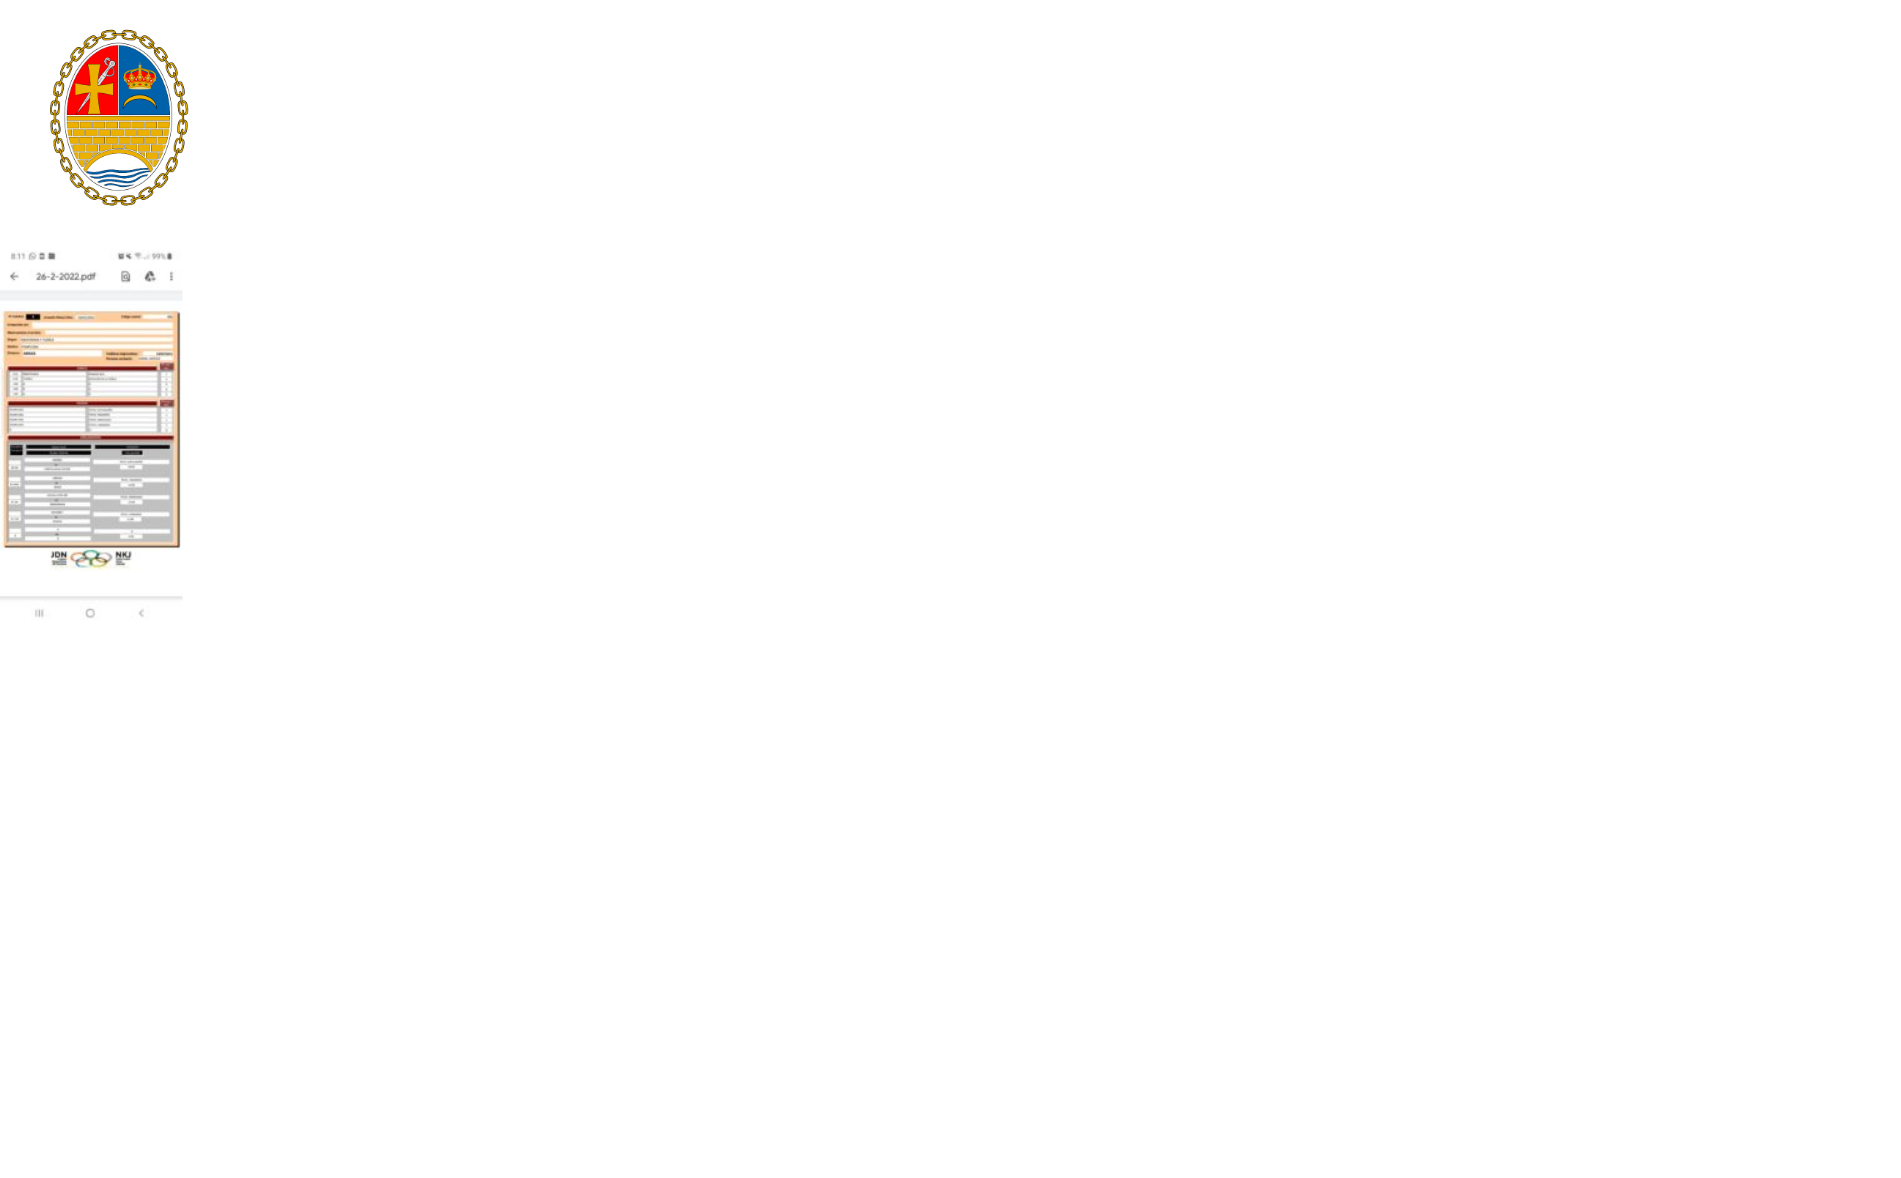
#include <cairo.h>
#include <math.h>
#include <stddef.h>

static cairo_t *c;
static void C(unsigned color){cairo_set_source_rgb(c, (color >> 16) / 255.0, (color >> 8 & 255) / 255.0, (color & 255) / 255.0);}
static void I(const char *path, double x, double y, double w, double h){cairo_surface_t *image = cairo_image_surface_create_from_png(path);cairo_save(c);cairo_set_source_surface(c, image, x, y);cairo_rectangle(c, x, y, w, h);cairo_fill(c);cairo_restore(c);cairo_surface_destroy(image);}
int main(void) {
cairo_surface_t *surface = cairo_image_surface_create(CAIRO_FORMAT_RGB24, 1901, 1178);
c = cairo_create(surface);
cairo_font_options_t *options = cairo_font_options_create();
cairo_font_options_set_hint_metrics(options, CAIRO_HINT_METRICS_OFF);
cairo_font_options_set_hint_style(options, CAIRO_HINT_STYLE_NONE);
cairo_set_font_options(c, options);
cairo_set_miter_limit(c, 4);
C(0xffffff);
cairo_paint(c);
I("1.png",50,29,139,177);
I("2.png",0,250,183,370);
cairo_surface_write_to_png(surface, "o.png");
cairo_font_options_destroy(options);
cairo_destroy(c);
cairo_surface_destroy(surface);
return 0;
}
